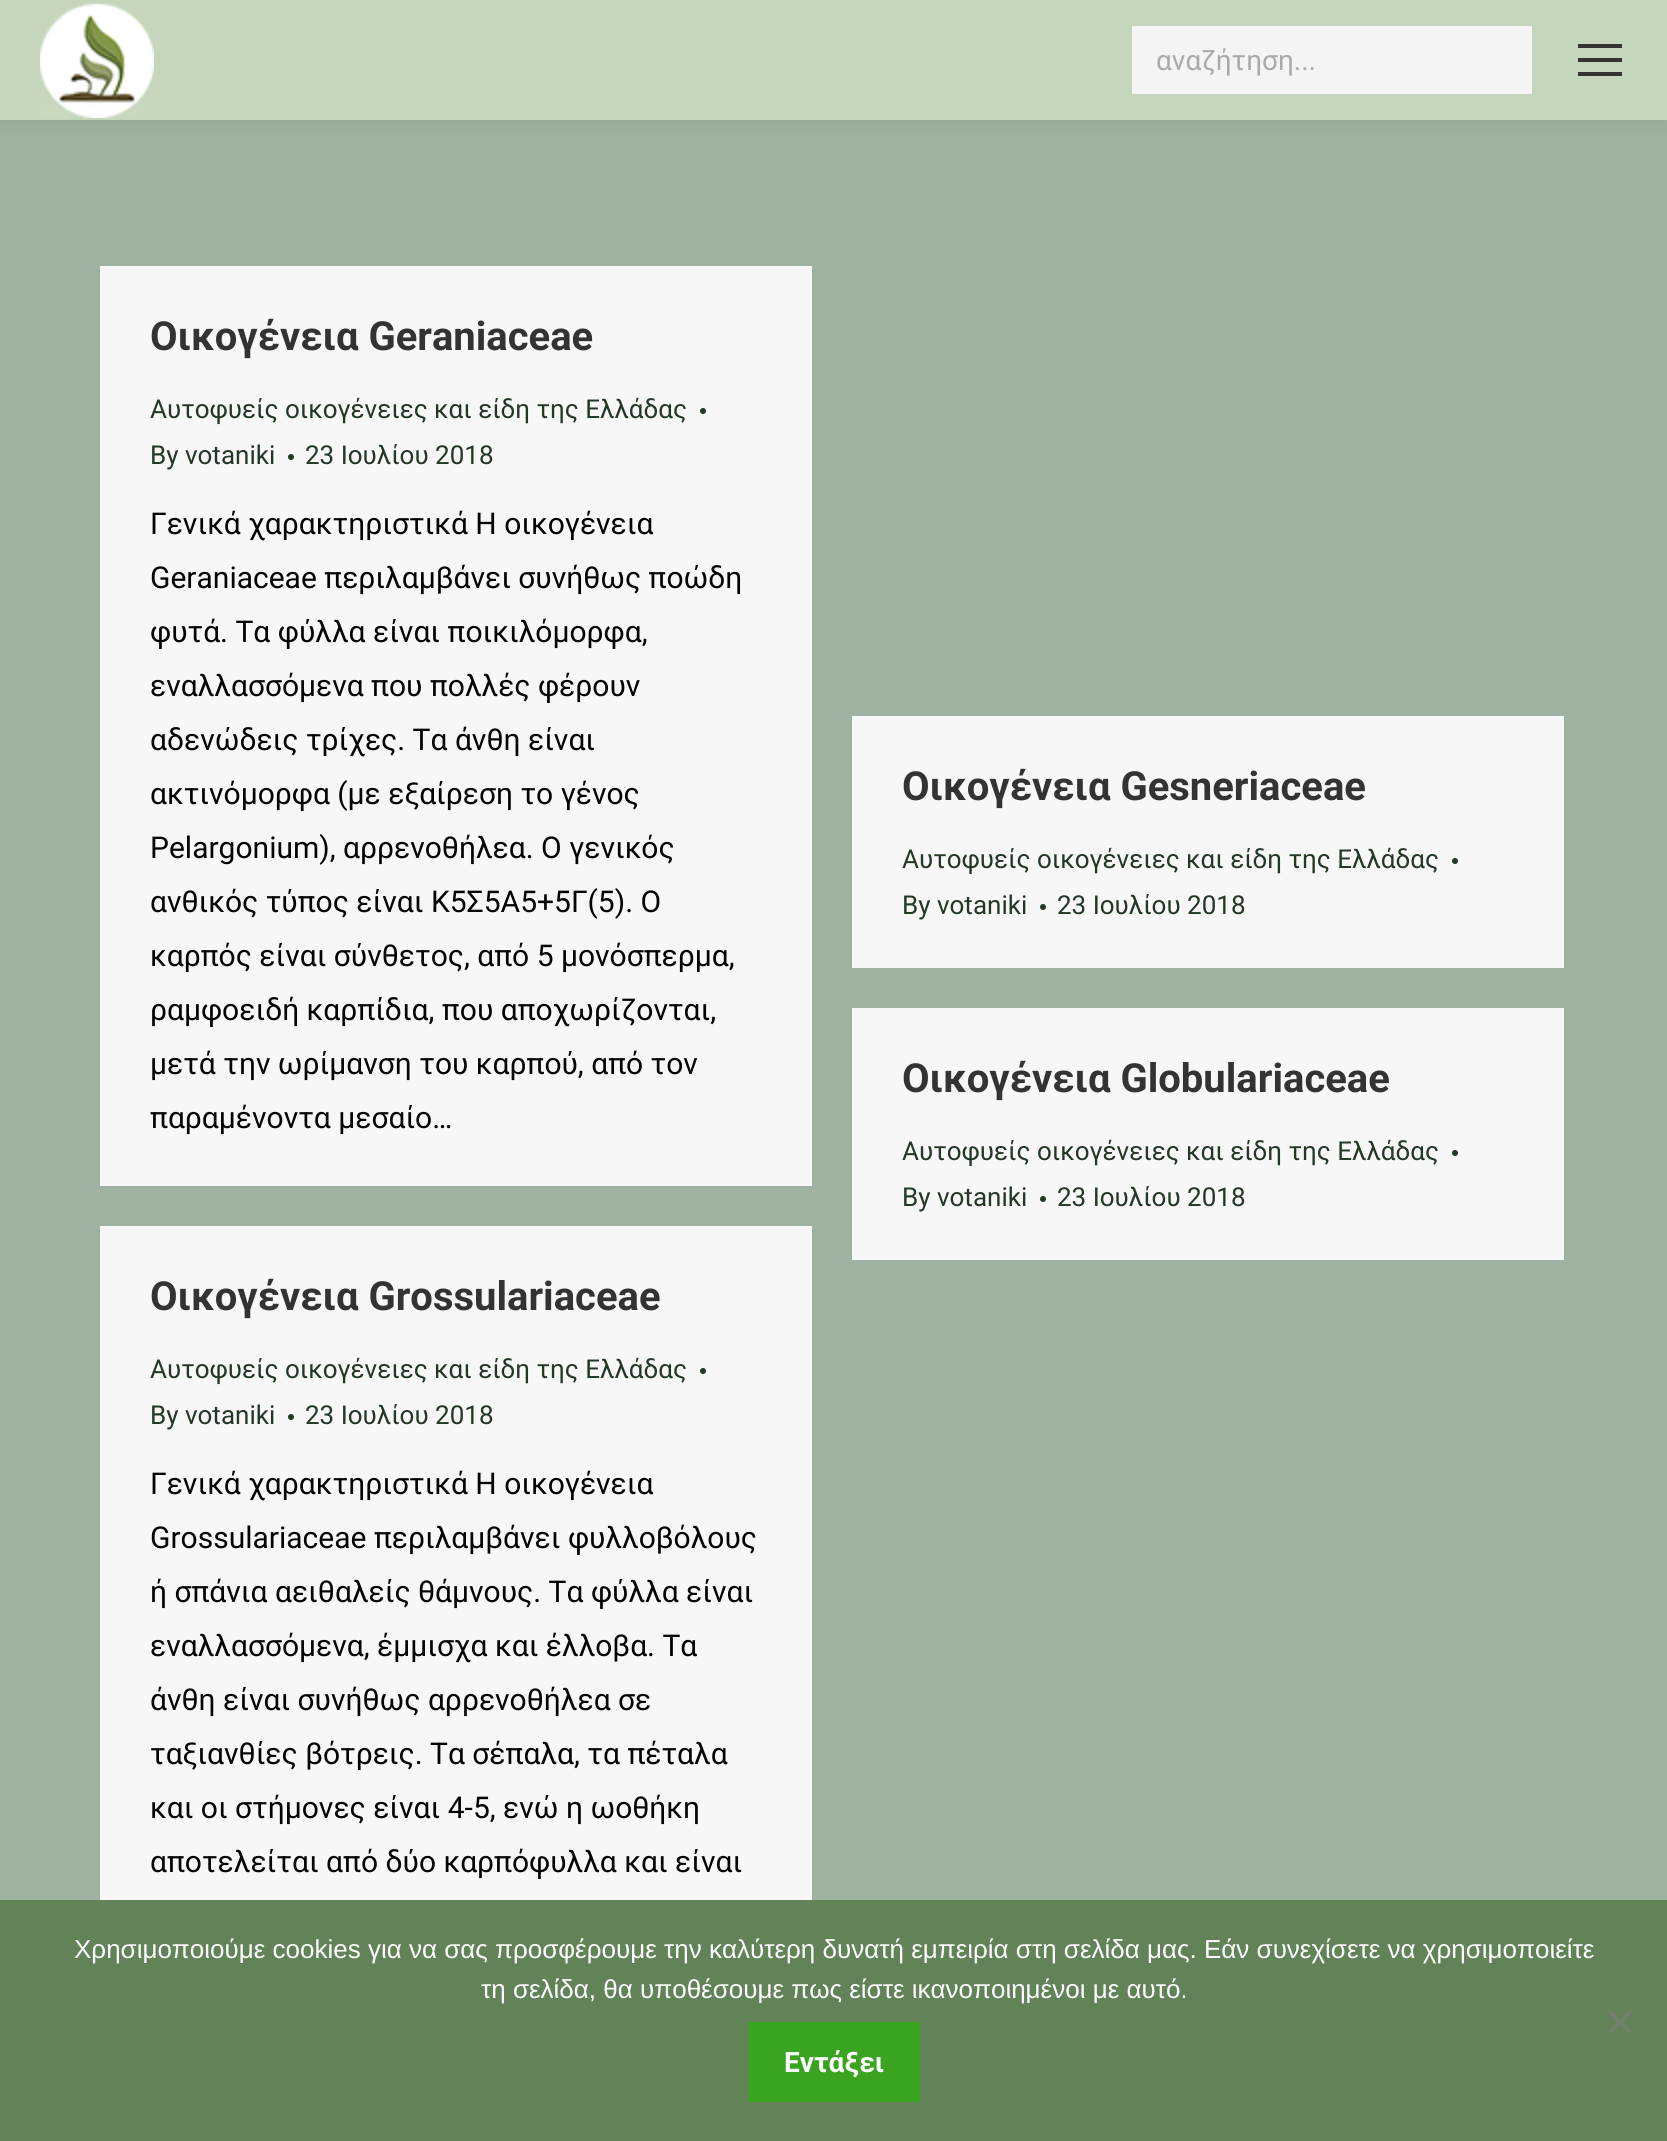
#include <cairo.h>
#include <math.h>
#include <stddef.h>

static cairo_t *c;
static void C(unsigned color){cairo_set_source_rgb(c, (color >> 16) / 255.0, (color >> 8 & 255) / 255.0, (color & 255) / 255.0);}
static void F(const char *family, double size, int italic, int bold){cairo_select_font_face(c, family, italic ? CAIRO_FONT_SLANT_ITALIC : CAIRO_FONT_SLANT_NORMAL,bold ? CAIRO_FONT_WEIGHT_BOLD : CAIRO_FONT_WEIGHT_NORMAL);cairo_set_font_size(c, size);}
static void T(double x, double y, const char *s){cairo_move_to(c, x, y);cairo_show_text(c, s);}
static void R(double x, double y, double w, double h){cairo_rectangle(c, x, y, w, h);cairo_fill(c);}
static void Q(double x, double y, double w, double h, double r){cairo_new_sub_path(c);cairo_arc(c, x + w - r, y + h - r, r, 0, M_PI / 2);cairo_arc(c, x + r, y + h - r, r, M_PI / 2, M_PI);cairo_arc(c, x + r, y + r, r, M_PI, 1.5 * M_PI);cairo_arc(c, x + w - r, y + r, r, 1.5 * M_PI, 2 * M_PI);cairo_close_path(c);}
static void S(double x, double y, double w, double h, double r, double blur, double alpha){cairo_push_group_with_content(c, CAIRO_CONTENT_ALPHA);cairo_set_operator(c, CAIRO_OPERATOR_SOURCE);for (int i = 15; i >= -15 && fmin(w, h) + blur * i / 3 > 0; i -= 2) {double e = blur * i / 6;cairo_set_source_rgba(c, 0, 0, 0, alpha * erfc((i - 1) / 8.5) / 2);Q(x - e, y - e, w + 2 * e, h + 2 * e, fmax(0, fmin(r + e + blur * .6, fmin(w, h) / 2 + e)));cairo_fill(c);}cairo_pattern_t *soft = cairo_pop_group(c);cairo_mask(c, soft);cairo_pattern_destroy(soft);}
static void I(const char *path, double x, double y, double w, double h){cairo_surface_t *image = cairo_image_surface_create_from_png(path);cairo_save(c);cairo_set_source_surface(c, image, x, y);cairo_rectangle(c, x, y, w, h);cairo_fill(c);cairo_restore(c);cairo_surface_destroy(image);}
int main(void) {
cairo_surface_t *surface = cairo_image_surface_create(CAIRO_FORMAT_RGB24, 1667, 2141);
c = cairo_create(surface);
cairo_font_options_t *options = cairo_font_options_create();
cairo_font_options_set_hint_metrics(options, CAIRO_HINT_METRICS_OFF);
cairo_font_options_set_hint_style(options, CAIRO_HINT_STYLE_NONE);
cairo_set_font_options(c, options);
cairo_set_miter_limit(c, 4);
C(0xa0b2a1);
cairo_paint(c);
C(0x000000);
S(-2,-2,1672,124,0,15,.07);
C(0xc6d6bc);
R(0,0,1667,120);
I("1.png",40,3,114,115);
C(0xf4f4f4);
R(1132,26,400,68);
F("Roboto",28,0,0);
C(0xaaaaaa);
T(1156,70,"αναζήτηση...");
C(0x333333);
R(1578,44,44,4);
R(1578,58,44,4);
R(1578,72,44,4);
C(0xf7f7f7);
R(100,266,712,920);
F("Roboto",40,0,1);
C(0x333333);
T(150,350,"Οικογένεια Geraniaceae");
F("Roboto",26,0,0);
C(0x233825);
T(150,418,"Αυτοφυείς οικογένειες και είδη της Ελλάδας");
cairo_new_path(c);
cairo_arc(c,703,411,3,0,2 * M_PI);
cairo_fill(c);
T(150,464,"By votaniki");
cairo_new_path(c);
cairo_arc(c,291,457,3,0,2 * M_PI);
cairo_fill(c);
T(305,464,"23 Ιουλίου 2018");
F("Roboto",30,0,0);
C(0x050404);
T(150,534,"Γενικά χαρακτηριστικά Η οικογένεια");
T(150,588,"Geraniaceae περιλαμβάνει συνήθως ποώδη");
T(150,642,"φυτά. Τα φύλλα είναι ποικιλόμορφα,");
T(150,696,"εναλλασσόμενα που πολλές φέρουν");
T(150,750,"αδενώδεις τρίχες. Τα άνθη είναι");
T(150,804,"ακτινόμορφα (με εξαίρεση το γένος");
T(150,858,"Pelargonium), αρρενοθήλεα. Ο γενικός");
T(150,912,"ανθικός τύπος είναι Κ5Σ5Α5+5Γ(5). Ο");
T(150,966,"καρπός είναι σύνθετος, από 5 μονόσπερμα,");
T(150,1020,"ραμφοειδή καρπίδια, που αποχωρίζονται,");
T(150,1074,"μετά την ωρίμανση του καρπού, από τον");
T(150,1128,"παραμένοντα μεσαίο…");
C(0xf7f7f7);
R(852,716,712,252);
F("Roboto",40,0,1);
C(0x333333);
T(902,800,"Οικογένεια Gesneriaceae");
F("Roboto",26,0,0);
C(0x233825);
T(902,868,"Αυτοφυείς οικογένειες και είδη της Ελλάδας");
cairo_new_path(c);
cairo_arc(c,1455,861,3,0,2 * M_PI);
cairo_fill(c);
T(902,914,"By votaniki");
cairo_new_path(c);
cairo_arc(c,1043,907,3,0,2 * M_PI);
cairo_fill(c);
T(1057,914,"23 Ιουλίου 2018");
C(0xf7f7f7);
R(852,1008,712,252);
F("Roboto",40,0,1);
C(0x333333);
T(902,1092,"Οικογένεια Globulariaceae");
F("Roboto",26,0,0);
C(0x233825);
T(902,1160,"Αυτοφυείς οικογένειες και είδη της Ελλάδας");
cairo_new_path(c);
cairo_arc(c,1455,1153,3,0,2 * M_PI);
cairo_fill(c);
T(902,1206,"By votaniki");
cairo_new_path(c);
cairo_arc(c,1043,1199,3,0,2 * M_PI);
cairo_fill(c);
T(1057,1206,"23 Ιουλίου 2018");
C(0xf7f7f7);
R(100,1226,712,674);
F("Roboto",40,0,1);
C(0x333333);
T(150,1310,"Οικογένεια Grossulariaceae");
F("Roboto",26,0,0);
C(0x233825);
T(150,1378,"Αυτοφυείς οικογένειες και είδη της Ελλάδας");
cairo_new_path(c);
cairo_arc(c,703,1371,3,0,2 * M_PI);
cairo_fill(c);
T(150,1424,"By votaniki");
cairo_new_path(c);
cairo_arc(c,291,1417,3,0,2 * M_PI);
cairo_fill(c);
T(305,1424,"23 Ιουλίου 2018");
F("Roboto",30,0,0);
C(0x050404);
T(150,1494,"Γενικά χαρακτηριστικά H οικογένεια");
T(150,1548,"Grossulariaceae περιλαμβάνει φυλλοβόλους");
T(150,1602,"ή σπάνια αειθαλείς θάμνους. Τα φύλλα είναι");
T(150,1656,"εναλλασσόμενα, έμμισχα και έλλοβα. Τα");
T(150,1710,"άνθη είναι συνήθως αρρενοθήλεα σε");
T(150,1764,"ταξιανθίες βότρεις. Τα σέπαλα, τα πέταλα");
T(150,1818,"και οι στήμονες είναι 4-5, ενώ η ωοθήκη");
T(150,1872,"αποτελείται από δύο καρπόφυλλα και είναι");
C(0x628258);
R(0,1900,1667,241);
F("Liberation Sans",26,0,0);
C(0xffffff);
T(74,1958,"Χρησιμοποιούμε cookies για να σας προσφέρουμε την καλύτερη δυνατή εμπειρία στη σελίδα μας. Εάν συνεχίσετε να χρησιμοποιείτε");
T(481,1998,"τη σελίδα, θα υποθέσουμε πως είστε ικανοποιημένοι με αυτό.");
C(0x71816c);
cairo_new_path(c);
cairo_move_to(c,1629,2010);
cairo_line_to(c,1632,2013);
cairo_line_to(c,1611,2034);
cairo_line_to(c,1608,2031);
cairo_close_path(c);
cairo_fill(c);
cairo_new_path(c);
cairo_move_to(c,1608,2013);
cairo_line_to(c,1611,2010);
cairo_line_to(c,1632,2031);
cairo_line_to(c,1629,2034);
cairo_close_path(c);
cairo_fill(c);
C(0x3aa320);
Q(748,2022,172,80,2);
cairo_fill(c);
F("Roboto",28,0,1);
C(0xffffff);
T(784,2072,"Εντάξει");
cairo_surface_write_to_png(surface, "o.png");
cairo_font_options_destroy(options);
cairo_destroy(c);
cairo_surface_destroy(surface);
return 0;
}
